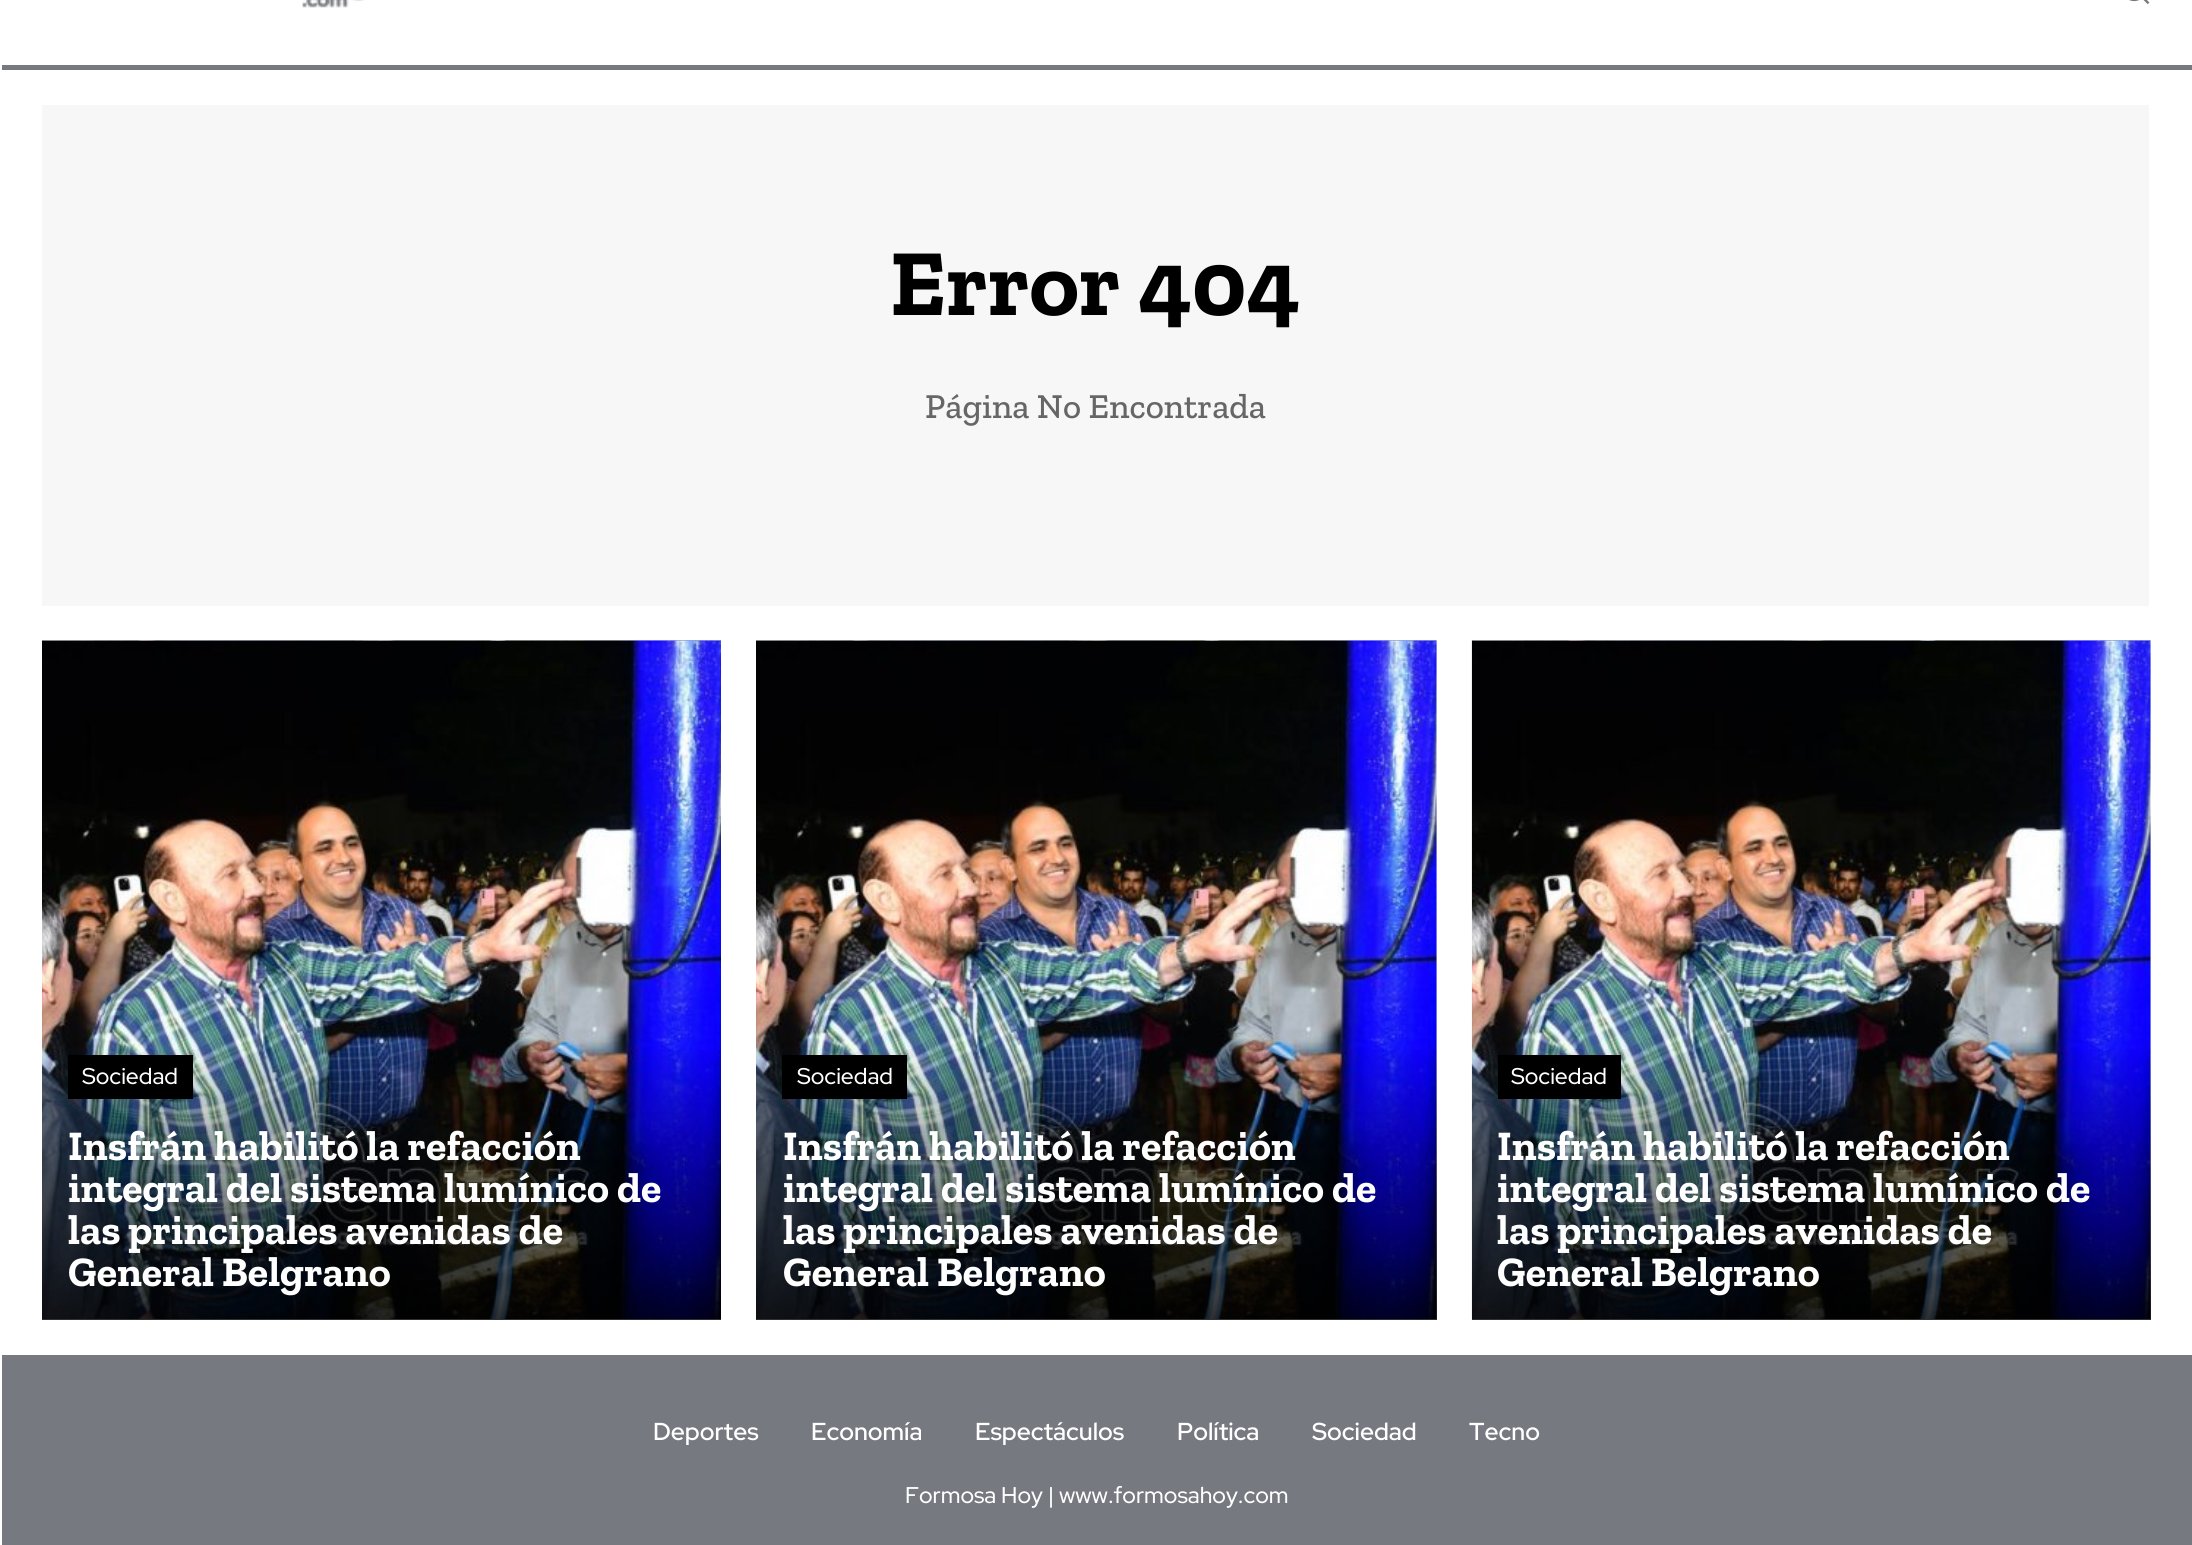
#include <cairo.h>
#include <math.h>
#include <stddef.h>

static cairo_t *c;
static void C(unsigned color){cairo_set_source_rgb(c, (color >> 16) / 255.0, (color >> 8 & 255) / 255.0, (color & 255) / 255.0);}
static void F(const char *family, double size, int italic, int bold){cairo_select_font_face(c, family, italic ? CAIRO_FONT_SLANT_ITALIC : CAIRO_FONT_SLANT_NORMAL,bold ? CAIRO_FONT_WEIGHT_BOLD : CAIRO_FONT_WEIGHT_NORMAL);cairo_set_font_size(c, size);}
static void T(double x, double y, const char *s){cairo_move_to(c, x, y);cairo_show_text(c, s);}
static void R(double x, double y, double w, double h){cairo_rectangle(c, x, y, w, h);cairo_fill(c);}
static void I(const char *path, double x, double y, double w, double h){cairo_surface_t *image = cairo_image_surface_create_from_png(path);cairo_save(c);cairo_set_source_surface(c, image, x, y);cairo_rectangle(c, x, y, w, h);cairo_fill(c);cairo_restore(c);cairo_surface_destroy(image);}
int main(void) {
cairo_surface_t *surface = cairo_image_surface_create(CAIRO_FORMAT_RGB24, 2192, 1545);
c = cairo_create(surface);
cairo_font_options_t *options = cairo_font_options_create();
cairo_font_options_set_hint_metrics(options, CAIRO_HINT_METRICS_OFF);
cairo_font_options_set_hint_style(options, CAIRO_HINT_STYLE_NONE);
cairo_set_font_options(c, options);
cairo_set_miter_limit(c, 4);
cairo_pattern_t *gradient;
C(0xffffff);
cairo_paint(c);
I("1.png",302,0,62,8);
I("2.png",2129,0,21,5);
C(0x777980);
R(2,65,2190,5);
C(0xf7f7f7);
R(42,105,2107,501);
F("Zilla Slab",94.5,0,1);
C(0x000000);
T(890,315,"Error 404");
F("Zilla Slab Medium",35,0,0);
C(0x666666);
T(925,418,"Página No Encontrada");
I("3.png",42,640,679,680);
gradient = cairo_pattern_create_linear(382,1320,382,641);
cairo_pattern_add_color_stop_rgba(gradient,0,0,0,0,.8);
cairo_pattern_add_color_stop_rgba(gradient,.41,0,0,0,0);
cairo_pattern_add_color_stop_rgba(gradient,1,0,0,0,0);
cairo_set_source(c,gradient);
cairo_pattern_destroy(gradient);
R(42,1049,679,271);
C(0x000000);
R(68,1055,125,44);
F("Red Hat Display Medium",22.75,0,0);
C(0xffffff);
T(82,1084,"Sociedad");
F("Zilla Slab",42,0,1);
T(68,1160,"Insfrán habilitó la refacción");
T(68,1202,"integral del sistema lumínico de");
T(68,1244,"las principales avenidas de");
T(68,1286,"General Belgrano");
I("4.png",756,640,681,680);
gradient = cairo_pattern_create_linear(1096,1320,1096,641);
cairo_pattern_add_color_stop_rgba(gradient,0,0,0,0,.8);
cairo_pattern_add_color_stop_rgba(gradient,.41,0,0,0,0);
cairo_pattern_add_color_stop_rgba(gradient,1,0,0,0,0);
cairo_set_source(c,gradient);
cairo_pattern_destroy(gradient);
R(756,1049,681,271);
C(0x000000);
R(782,1055,125,44);
F("Red Hat Display Medium",22.75,0,0);
C(0xffffff);
T(797,1084,"Sociedad");
F("Zilla Slab",42,0,1);
T(783,1160,"Insfrán habilitó la refacción");
T(783,1202,"integral del sistema lumínico de");
T(783,1244,"las principales avenidas de");
T(783,1286,"General Belgrano");
I("5.png",1471,640,680,680);
gradient = cairo_pattern_create_linear(1811,1320,1811,641);
cairo_pattern_add_color_stop_rgba(gradient,0,0,0,0,.8);
cairo_pattern_add_color_stop_rgba(gradient,.41,0,0,0,0);
cairo_pattern_add_color_stop_rgba(gradient,1,0,0,0,0);
cairo_set_source(c,gradient);
cairo_pattern_destroy(gradient);
R(1472,1049,679,271);
C(0x000000);
R(1498,1055,123,44);
F("Red Hat Display Medium",22.75,0,0);
C(0xffffff);
T(1511,1084,"Sociedad");
F("Zilla Slab",42,0,1);
T(1497,1160,"Insfrán habilitó la refacción");
T(1497,1202,"integral del sistema lumínico de");
T(1497,1244,"las principales avenidas de");
T(1497,1286,"General Belgrano");
C(0x777980);
R(2,1355,2190,190);
F("Red Hat Display SemiBold",24.5,0,0);
C(0xffffff);
T(653,1440,"Deportes");
T(811,1440,"Economía");
T(975,1440,"Espectáculos");
T(1177,1440,"Política");
T(1312,1440,"Sociedad");
T(1469,1440,"Tecno");
F("Red Hat Display Medium",22.75,0,0);
T(905,1503,"Formosa Hoy | www.formosahoy.com");
cairo_surface_write_to_png(surface, "o.png");
cairo_font_options_destroy(options);
cairo_destroy(c);
cairo_surface_destroy(surface);
return 0;
}
